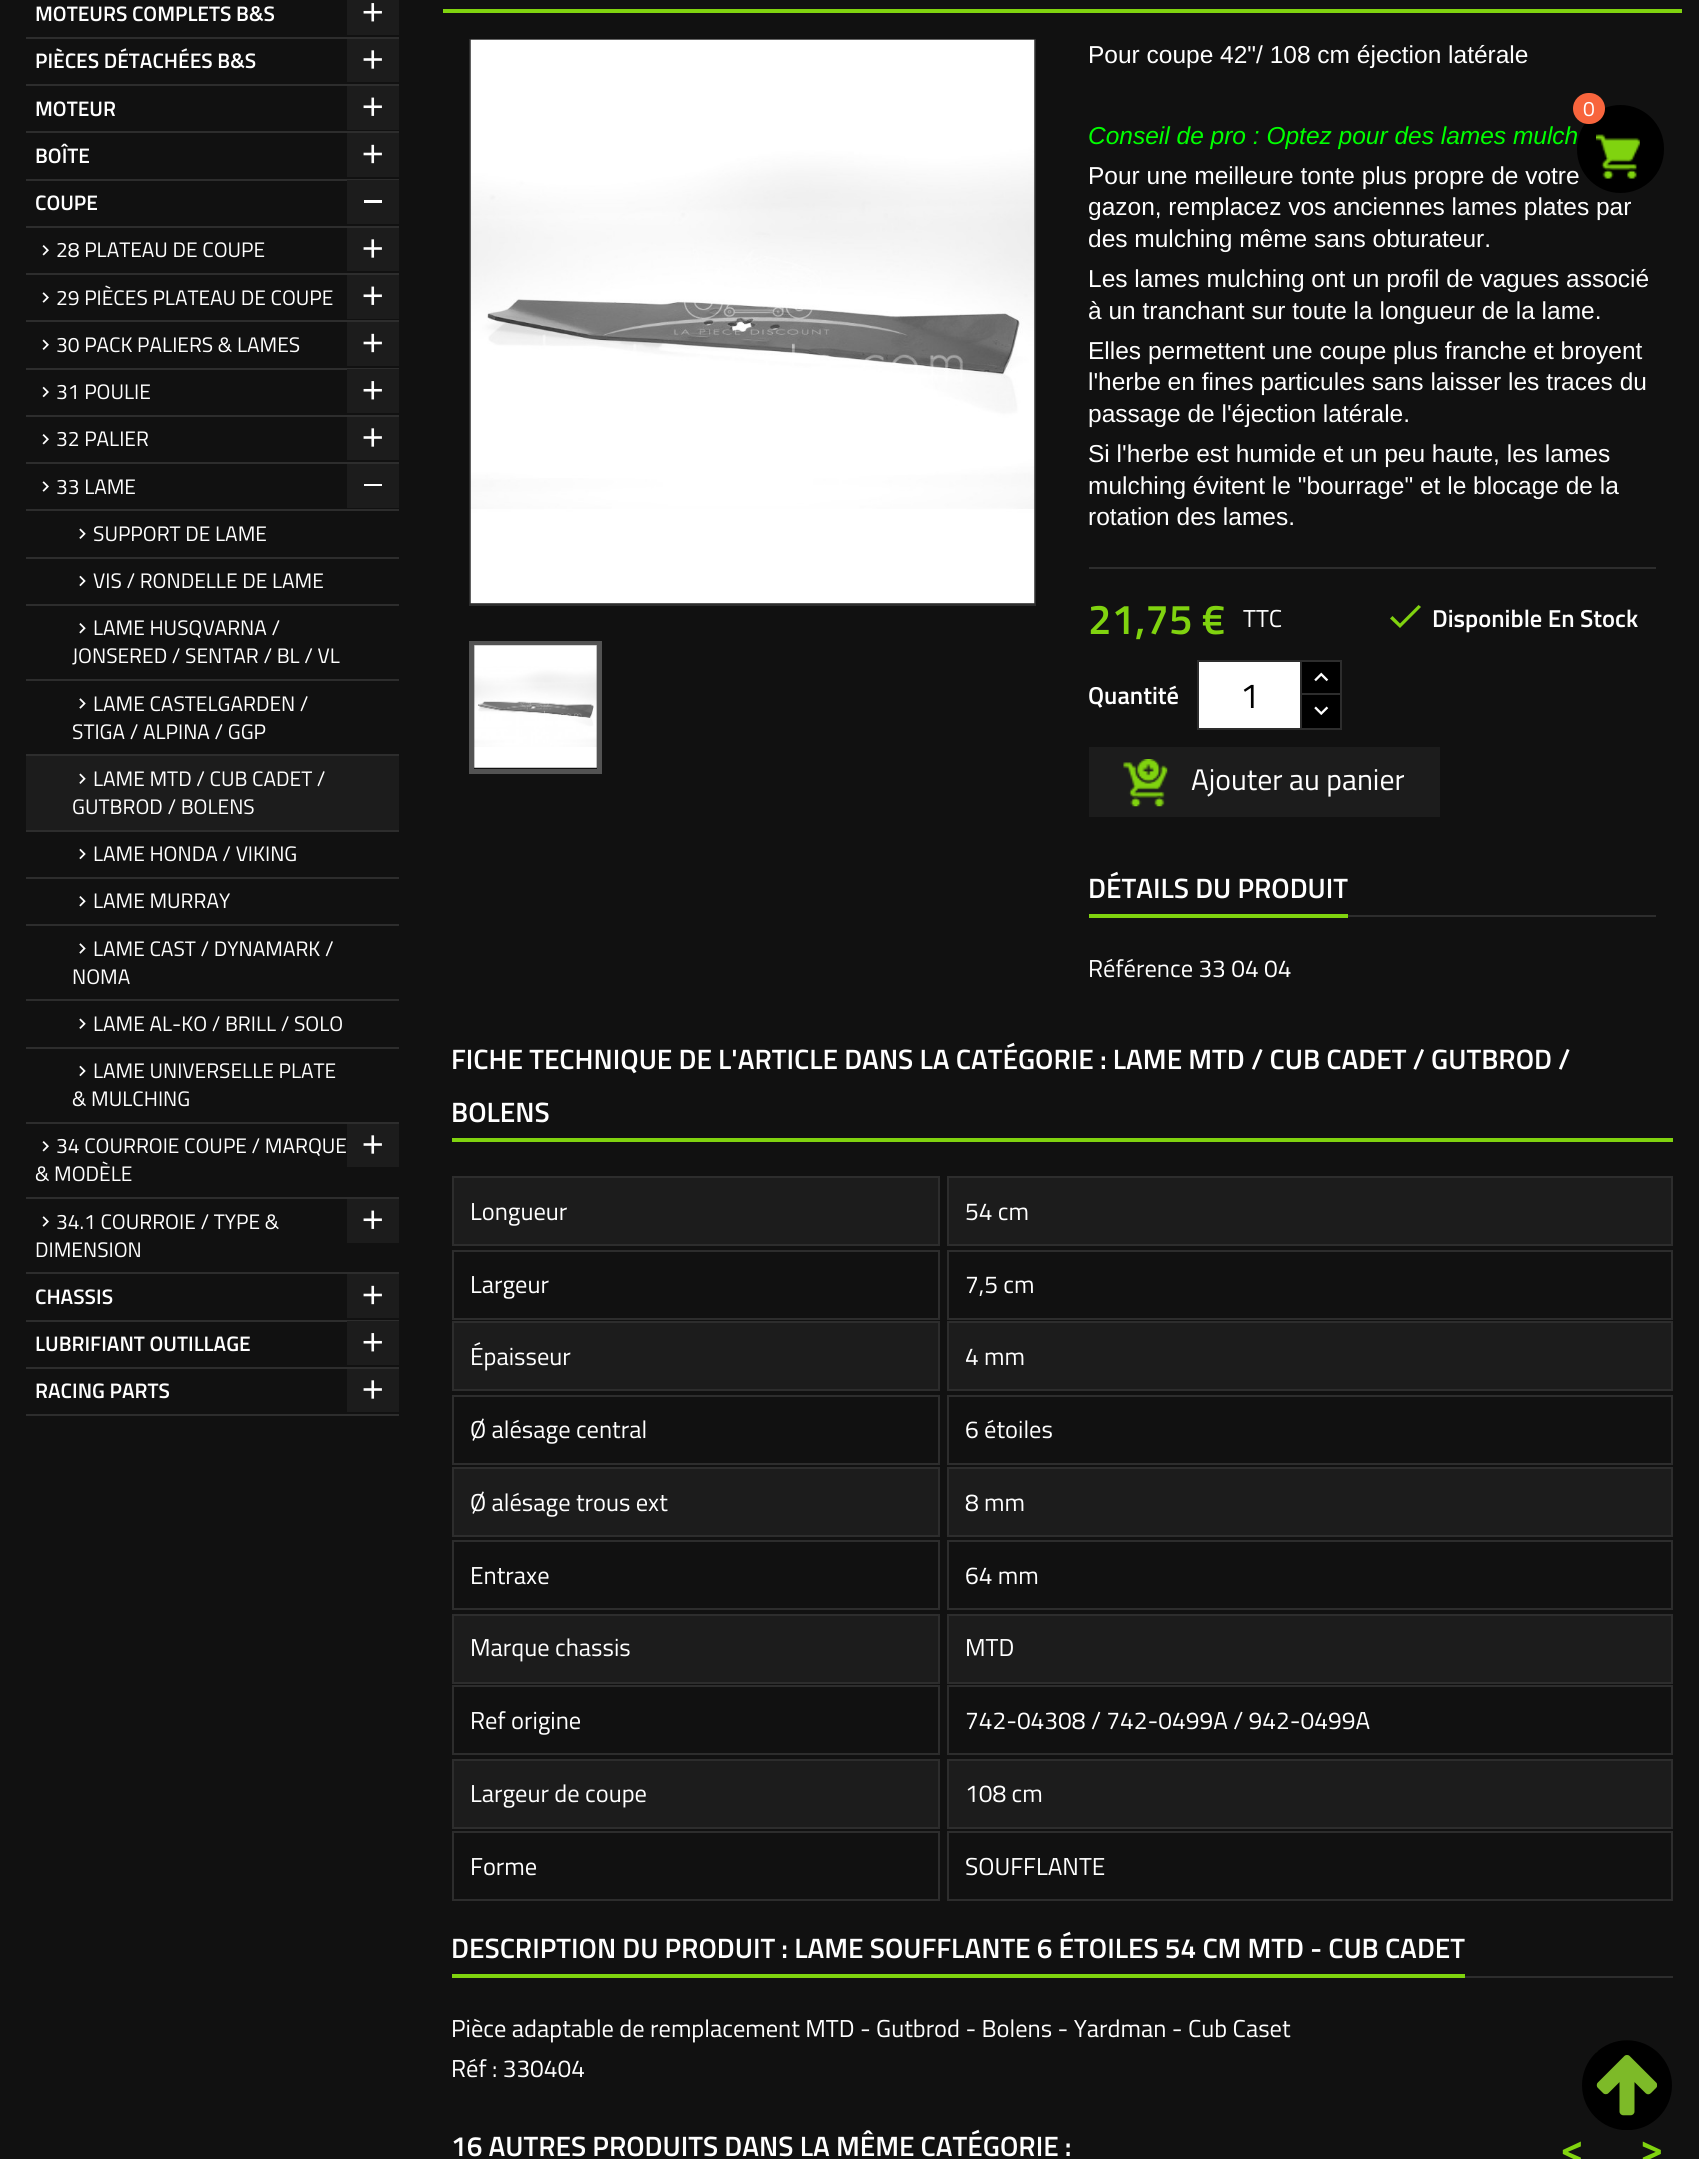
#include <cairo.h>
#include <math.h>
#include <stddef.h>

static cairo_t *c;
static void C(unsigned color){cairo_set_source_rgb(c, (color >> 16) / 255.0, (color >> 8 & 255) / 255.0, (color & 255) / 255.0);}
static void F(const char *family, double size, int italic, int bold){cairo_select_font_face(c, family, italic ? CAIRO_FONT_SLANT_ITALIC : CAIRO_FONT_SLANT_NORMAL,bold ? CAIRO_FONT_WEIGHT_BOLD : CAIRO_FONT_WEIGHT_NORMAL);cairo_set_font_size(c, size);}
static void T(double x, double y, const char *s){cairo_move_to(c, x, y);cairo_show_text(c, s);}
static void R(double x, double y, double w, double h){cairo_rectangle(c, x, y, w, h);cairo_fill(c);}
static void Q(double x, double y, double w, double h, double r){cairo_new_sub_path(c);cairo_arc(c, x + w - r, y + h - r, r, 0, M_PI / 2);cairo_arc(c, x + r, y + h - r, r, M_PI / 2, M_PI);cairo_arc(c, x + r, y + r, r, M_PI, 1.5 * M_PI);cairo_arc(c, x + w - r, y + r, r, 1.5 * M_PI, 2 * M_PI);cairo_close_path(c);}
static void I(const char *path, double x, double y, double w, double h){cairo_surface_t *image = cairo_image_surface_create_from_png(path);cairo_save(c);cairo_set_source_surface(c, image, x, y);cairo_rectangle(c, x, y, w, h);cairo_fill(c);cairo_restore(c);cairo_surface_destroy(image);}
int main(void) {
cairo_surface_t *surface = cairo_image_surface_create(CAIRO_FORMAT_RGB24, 1699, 2159);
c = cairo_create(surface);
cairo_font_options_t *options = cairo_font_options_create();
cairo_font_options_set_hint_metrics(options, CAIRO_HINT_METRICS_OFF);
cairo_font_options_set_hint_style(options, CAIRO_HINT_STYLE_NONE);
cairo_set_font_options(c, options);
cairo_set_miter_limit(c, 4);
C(0x111111);
cairo_paint(c);
C(0x2d2d2d);
R(26,37,373,2);
F("Titillium Web SemiBold",21,0,0);
C(0xffffff);
T(35,21,"MOTEURS COMPLETS B&S");
C(0x1c1c1c);
R(347,0,52,35);
I("1.png",363,3,19,19);
C(0x2d2d2d);
R(26,84,373,2);
C(0xffffff);
T(35,68,"PIÈCES DÉTACHÉES B&S");
C(0x1c1c1c);
R(347,39,52,43);
I("2.png",363,50,19,19);
C(0x2d2d2d);
R(26,131,373,2);
C(0xffffff);
T(35,116,"MOTEUR");
C(0x1c1c1c);
R(347,86,52,44);
I("3.png",363,97,19,19);
C(0x2d2d2d);
R(26,179,373,2);
C(0xffffff);
T(35,163,"BOÎTE");
C(0x1c1c1c);
R(347,133,52,44);
I("4.png",363,144,19,20);
C(0x2d2d2d);
R(26,226,373,2);
C(0xffffff);
T(35,210,"COUPE");
C(0x1c1c1c);
R(347,180,52,44);
C(0xffffff);
R(364,200,18,3);
C(0x2d2d2d);
R(26,273,373,2);
I("5.png",42,245,7,11);
F("Titillium Web",21,0,0);
C(0xffffff);
T(56,257,"28 PLATEAU DE COUPE");
C(0x1c1c1c);
R(347,228,52,43);
I("2.png",363,239,19,19);
C(0x2d2d2d);
R(26,320,373,2);
I("6.png",42,292,7,11);
C(0xffffff);
T(56,305,"29 PIÈCES PLATEAU DE COUPE");
C(0x1c1c1c);
R(347,275,52,44);
I("3.png",363,286,19,19);
C(0x2d2d2d);
R(26,368,373,2);
I("7.png",42,339,7,11);
C(0xffffff);
T(56,352,"30 PACK PALIERS & LAMES");
C(0x1c1c1c);
R(347,322,52,44);
I("4.png",363,333,19,20);
C(0x2d2d2d);
R(26,415,373,2);
I("8.png",42,386,7,12);
C(0xffffff);
T(56,399,"31 POULIE");
C(0x1c1c1c);
R(347,369,52,44);
I("1.png",363,381,19,19);
C(0x2d2d2d);
R(26,462,373,2);
I("5.png",42,434,7,11);
C(0xffffff);
T(56,446,"32 PALIER");
C(0x1c1c1c);
R(347,417,52,43);
I("2.png",363,428,19,19);
C(0x2d2d2d);
R(26,509,373,2);
I("6.png",42,481,7,11);
C(0xffffff);
T(56,494,"33 LAME");
C(0x1c1c1c);
R(347,464,52,44);
C(0xffffff);
R(364,484,18,2);
C(0x2d2d2d);
R(26,557,373,2);
I("9.png",79,528,7,11);
C(0xffffff);
T(93,541,"SUPPORT DE LAME");
C(0x2d2d2d);
R(26,604,373,2);
I("10.png",79,575,7,12);
C(0xffffff);
T(93,588,"VIS / RONDELLE DE LAME");
C(0x2d2d2d);
R(26,679,373,2);
I("11.png",79,623,7,11);
C(0xffffff);
T(93,635,"LAME HUSQVARNA /");
T(72,663,"JONSERED / SENTAR / BL / VL");
C(0x2d2d2d);
R(26,754,373,2);
I("12.png",79,698,7,11);
C(0xffffff);
T(93,711,"LAME CASTELGARDEN /");
T(72,739,"STIGA / ALPINA / GGP");
C(0x1c1c1c);
R(26,756,373,74);
C(0x2d2d2d);
R(26,830,373,2);
I("13.png",79,773,7,11);
C(0xffffff);
T(93,786,"LAME MTD / CUB CADET /");
T(72,814,"GUTBROD / BOLENS");
C(0x2d2d2d);
R(26,877,373,2);
I("10.png",79,848,7,12);
C(0xffffff);
T(93,861,"LAME HONDA / VIKING");
C(0x2d2d2d);
R(26,924,373,2);
I("11.png",79,896,7,11);
C(0xffffff);
T(93,908,"LAME MURRAY");
C(0x2d2d2d);
R(26,999,373,2);
I("12.png",79,943,7,11);
C(0xffffff);
T(93,956,"LAME CAST / DYNAMARK /");
T(72,984,"NOMA");
C(0x2d2d2d);
R(26,1047,373,2);
I("9.png",79,1018,7,11);
C(0xffffff);
T(93,1031,"LAME AL-KO / BRILL / SOLO");
C(0x2d2d2d);
R(26,1122,373,2);
I("10.png",79,1065,7,12);
C(0xffffff);
T(93,1078,"LAME UNIVERSELLE PLATE");
T(72,1106,"& MULCHING");
C(0x2d2d2d);
R(26,1197,373,2);
I("5.png",42,1141,7,11);
C(0xffffff);
T(56,1153,"34 COURROIE COUPE / MARQUE");
T(35,1181,"& MODÈLE");
C(0x1c1c1c);
R(347,1124,52,43);
I("2.png",363,1135,19,19);
C(0x2d2d2d);
R(26,1272,373,2);
I("6.png",42,1216,7,11);
C(0xffffff);
T(56,1229,"34.1 COURROIE / TYPE &");
T(35,1257,"DIMENSION");
C(0x1c1c1c);
R(347,1199,52,44);
I("3.png",363,1210,19,19);
C(0x2d2d2d);
R(26,1320,373,2);
F("Titillium Web SemiBold",21,0,0);
C(0xffffff);
T(35,1304,"CHASSIS");
C(0x1c1c1c);
R(347,1274,52,44);
I("4.png",363,1285,19,20);
C(0x2d2d2d);
R(26,1367,373,2);
C(0xffffff);
T(35,1351,"LUBRIFIANT OUTILLAGE");
C(0x1c1c1c);
R(347,1321,52,44);
I("1.png",363,1333,19,19);
C(0x2d2d2d);
R(26,1414,373,2);
C(0xffffff);
T(35,1398,"RACING PARTS");
C(0x1c1c1c);
R(347,1369,52,43);
I("2.png",363,1380,19,19);
C(0x80d30f);
R(443,9,1239,4);
cairo_rectangle(c,470,40,565,565);
C(0x2d2d2d);
cairo_stroke(c);
C(0x1c1c1c);
R(471,603,563,1);
I("14.png",470,39,565,565);
cairo_rectangle(c,471.5,643.5,128,128);
C(0x535353);
cairo_set_line_width(c,5);
cairo_stroke(c);
I("15.png",474,645,123,123);
F("Liberation Sans",24.5,0,0);
C(0xffffff);
T(1088,63,"Pour coupe 42\"/ 108 cm éjection latérale");
F("Liberation Sans",24.5,1,0);
C(0x00ff00);
T(1088,144,"Conseil de pro : Optez pour des lames mulch");
F("Liberation Sans",24.5,0,0);
C(0xffffff);
T(1088,184,"Pour une meilleure tonte plus propre de votre");
T(1088,215,"gazon, remplacez vos anciennes lames plates par");
T(1088,247,"des mulching même sans obturateur.");
T(1088,287,"Les lames mulching ont un profil de vagues associé");
T(1088,319,"à un tranchant sur toute la longueur de la lame.");
T(1088,359,"Elles permettent une coupe plus franche et broyent");
T(1088,390,"l'herbe en fines particules sans laisser les traces du");
T(1088,422,"passage de l'éjection latérale.");
T(1088,462,"Si l'herbe est humide et un peu haute, les lames");
T(1088,494,"mulching évitent le \"bourrage\" et le blocage de la");
T(1088,525,"rotation des lames.");
C(0x2d2d2d);
R(1089,567,567,2);
F("Titillium Web SemiBold",42,0,0);
C(0x80d30f);
T(1088,634,"21,75 €");
F("Titillium Web",24.5,0,0);
C(0xffffff);
T(1243,627,"TTC");
C(0x80d30f);
cairo_new_path(c);
cairo_move_to(c,1400,623.5);
cairo_line_to(c,1418.5,605);
cairo_line_to(c,1421,607);
cairo_line_to(c,1400,628);
cairo_line_to(c,1390,618.5);
cairo_line_to(c,1392.5,616);
cairo_close_path(c);
cairo_fill(c);
F("Titillium Web SemiBold",24.5,0,0);
C(0xffffff);
T(1432,627,"Disponible En Stock");
T(1088,704,"Quantité");
C(0x000000);
R(1302,662,38,31);
cairo_rectangle(c,1301,661,40,35);
C(0x2d2d2d);
cairo_set_line_width(c,2);
cairo_stroke(c);
C(0x000000);
cairo_rectangle(c,1301,694,40,35);
cairo_fill_preserve(c);
C(0x2d2d2d);
cairo_stroke(c);
C(0xffffff);
cairo_rectangle(c,1198,661,103,68);
cairo_fill_preserve(c);
C(0x2d2d2d);
cairo_stroke(c);
F("Titillium Web",35,0,0);
C(0x000000);
T(1240,708,"1");
I("16.png",1314,672,15,10);
I("17.png",1314,706,15,9);
C(0x1c1c1c);
R(1089,747,351,70);
I("18.png",1123,759,45,48);
F("Titillium Web",29.75,0,0);
C(0xffffff);
T(1191,790,"Ajouter au panier");
C(0x2d2d2d);
R(1348,915,308,2);
C(0x80d30f);
R(1089,914,259,4);
F("Titillium Web SemiBold",28,0,0);
C(0xffffff);
T(1088,898,"DÉTAILS DU PRODUIT");
F("Titillium Web",24.5,0,0);
T(1088,977,"Référence 33 04 04");
C(0x80d30f);
R(452,1138,1221,4);
F("Titillium Web SemiBold",28,0,0);
C(0xffffff);
T(451,1069,"FICHE TECHNIQUE DE L'ARTICLE DANS LA CATÉGORIE : LAME MTD / CUB CADET / GUTBROD /");
T(451,1122,"BOLENS");
C(0x1c1c1c);
cairo_rectangle(c,453,1177,486,68);
cairo_fill_preserve(c);
C(0x2d2d2d);
cairo_stroke(c);
F("Titillium Web",24.5,0,0);
C(0xffffff);
T(470,1220,"Longueur");
C(0x1c1c1c);
cairo_rectangle(c,948,1177,724,68);
cairo_fill_preserve(c);
C(0x2d2d2d);
cairo_stroke(c);
C(0xffffff);
T(965,1220,"54 cm");
cairo_rectangle(c,453,1251,486,68);
C(0x2d2d2d);
cairo_stroke(c);
C(0xffffff);
T(470,1293,"Largeur");
cairo_rectangle(c,948,1251,724,68);
C(0x2d2d2d);
cairo_stroke(c);
C(0xffffff);
T(965,1293,"7,5 cm");
C(0x1c1c1c);
cairo_rectangle(c,453,1322,486,68);
cairo_fill_preserve(c);
C(0x2d2d2d);
cairo_stroke(c);
C(0xffffff);
T(470,1365,"Épaisseur");
C(0x1c1c1c);
cairo_rectangle(c,948,1322,724,68);
cairo_fill_preserve(c);
C(0x2d2d2d);
cairo_stroke(c);
C(0xffffff);
T(965,1365,"4 mm");
cairo_rectangle(c,453,1396,486,68);
C(0x2d2d2d);
cairo_stroke(c);
C(0xffffff);
T(470,1438,"Ø alésage central");
cairo_rectangle(c,948,1396,724,68);
C(0x2d2d2d);
cairo_stroke(c);
C(0xffffff);
T(965,1438,"6 étoiles");
C(0x1c1c1c);
cairo_rectangle(c,453,1468,486,68);
cairo_fill_preserve(c);
C(0x2d2d2d);
cairo_stroke(c);
C(0xffffff);
T(470,1511,"Ø alésage trous ext");
C(0x1c1c1c);
cairo_rectangle(c,948,1468,724,68);
cairo_fill_preserve(c);
C(0x2d2d2d);
cairo_stroke(c);
C(0xffffff);
T(965,1511,"8 mm");
cairo_rectangle(c,453,1541,486,68);
C(0x2d2d2d);
cairo_stroke(c);
C(0xffffff);
T(470,1584,"Entraxe");
cairo_rectangle(c,948,1541,724,68);
C(0x2d2d2d);
cairo_stroke(c);
C(0xffffff);
T(965,1584,"64 mm");
C(0x1c1c1c);
cairo_rectangle(c,453,1615,486,68);
cairo_fill_preserve(c);
C(0x2d2d2d);
cairo_stroke(c);
C(0xffffff);
T(470,1656,"Marque chassis");
C(0x1c1c1c);
cairo_rectangle(c,948,1615,724,68);
cairo_fill_preserve(c);
C(0x2d2d2d);
cairo_stroke(c);
C(0xffffff);
T(965,1656,"MTD");
cairo_rectangle(c,453,1686,486,68);
C(0x2d2d2d);
cairo_stroke(c);
C(0xffffff);
T(470,1729,"Ref origine");
cairo_rectangle(c,948,1686,724,68);
C(0x2d2d2d);
cairo_stroke(c);
C(0xffffff);
T(965,1729,"742-04308 / 742-0499A / 942-0499A");
C(0x1c1c1c);
cairo_rectangle(c,453,1760,486,68);
cairo_fill_preserve(c);
C(0x2d2d2d);
cairo_stroke(c);
C(0xffffff);
T(470,1802,"Largeur de coupe");
C(0x1c1c1c);
cairo_rectangle(c,948,1760,724,68);
cairo_fill_preserve(c);
C(0x2d2d2d);
cairo_stroke(c);
C(0xffffff);
T(965,1802,"108 cm");
cairo_rectangle(c,453,1832,486,68);
C(0x2d2d2d);
cairo_stroke(c);
C(0xffffff);
T(470,1875,"Forme");
cairo_rectangle(c,948,1832,724,68);
C(0x2d2d2d);
cairo_stroke(c);
C(0xffffff);
T(965,1875,"SOUFFLANTE");
C(0x2d2d2d);
R(1465,1976,208,2);
C(0x80d30f);
R(452,1974,1013,4);
F("Titillium Web SemiBold",28,0,0);
C(0xffffff);
T(451,1958,"DESCRIPTION DU PRODUIT : LAME SOUFFLANTE 6 ÉTOILES 54 CM MTD - CUB CADET");
F("Titillium Web",24.5,0,0);
T(451,2037,"Pièce adaptable de remplacement MTD - Gutbrod - Bolens - Yardman - Cub Caset");
T(451,2077,"Réf : 330404");
F("Titillium Web SemiBold",28,0,0);
T(451,2156,"16 AUTRES PRODUITS DANS LA MÊME CATÉGORIE :");
F("Titillium Web SemiBold",44,0,0);
C(0x80d30f);
T(1560,2163,"<");
T(1639,2163,">");
C(0x000000);
Q(1577,105,87,88,43.5);
cairo_fill(c);
C(0xf8653d);
Q(1573,93,32,31,15.5);
cairo_fill(c);
F("Titillium Web",21,0,0);
C(0xffffff);
T(1583,116,"0");
I("19.png",1596,134,44,45);
C(0x7dba28);
Q(1596,2051,61,67,4);
cairo_fill(c);
I("20.png",1582,2040,90,90);
cairo_surface_write_to_png(surface, "o.png");
cairo_font_options_destroy(options);
cairo_destroy(c);
cairo_surface_destroy(surface);
return 0;
}
